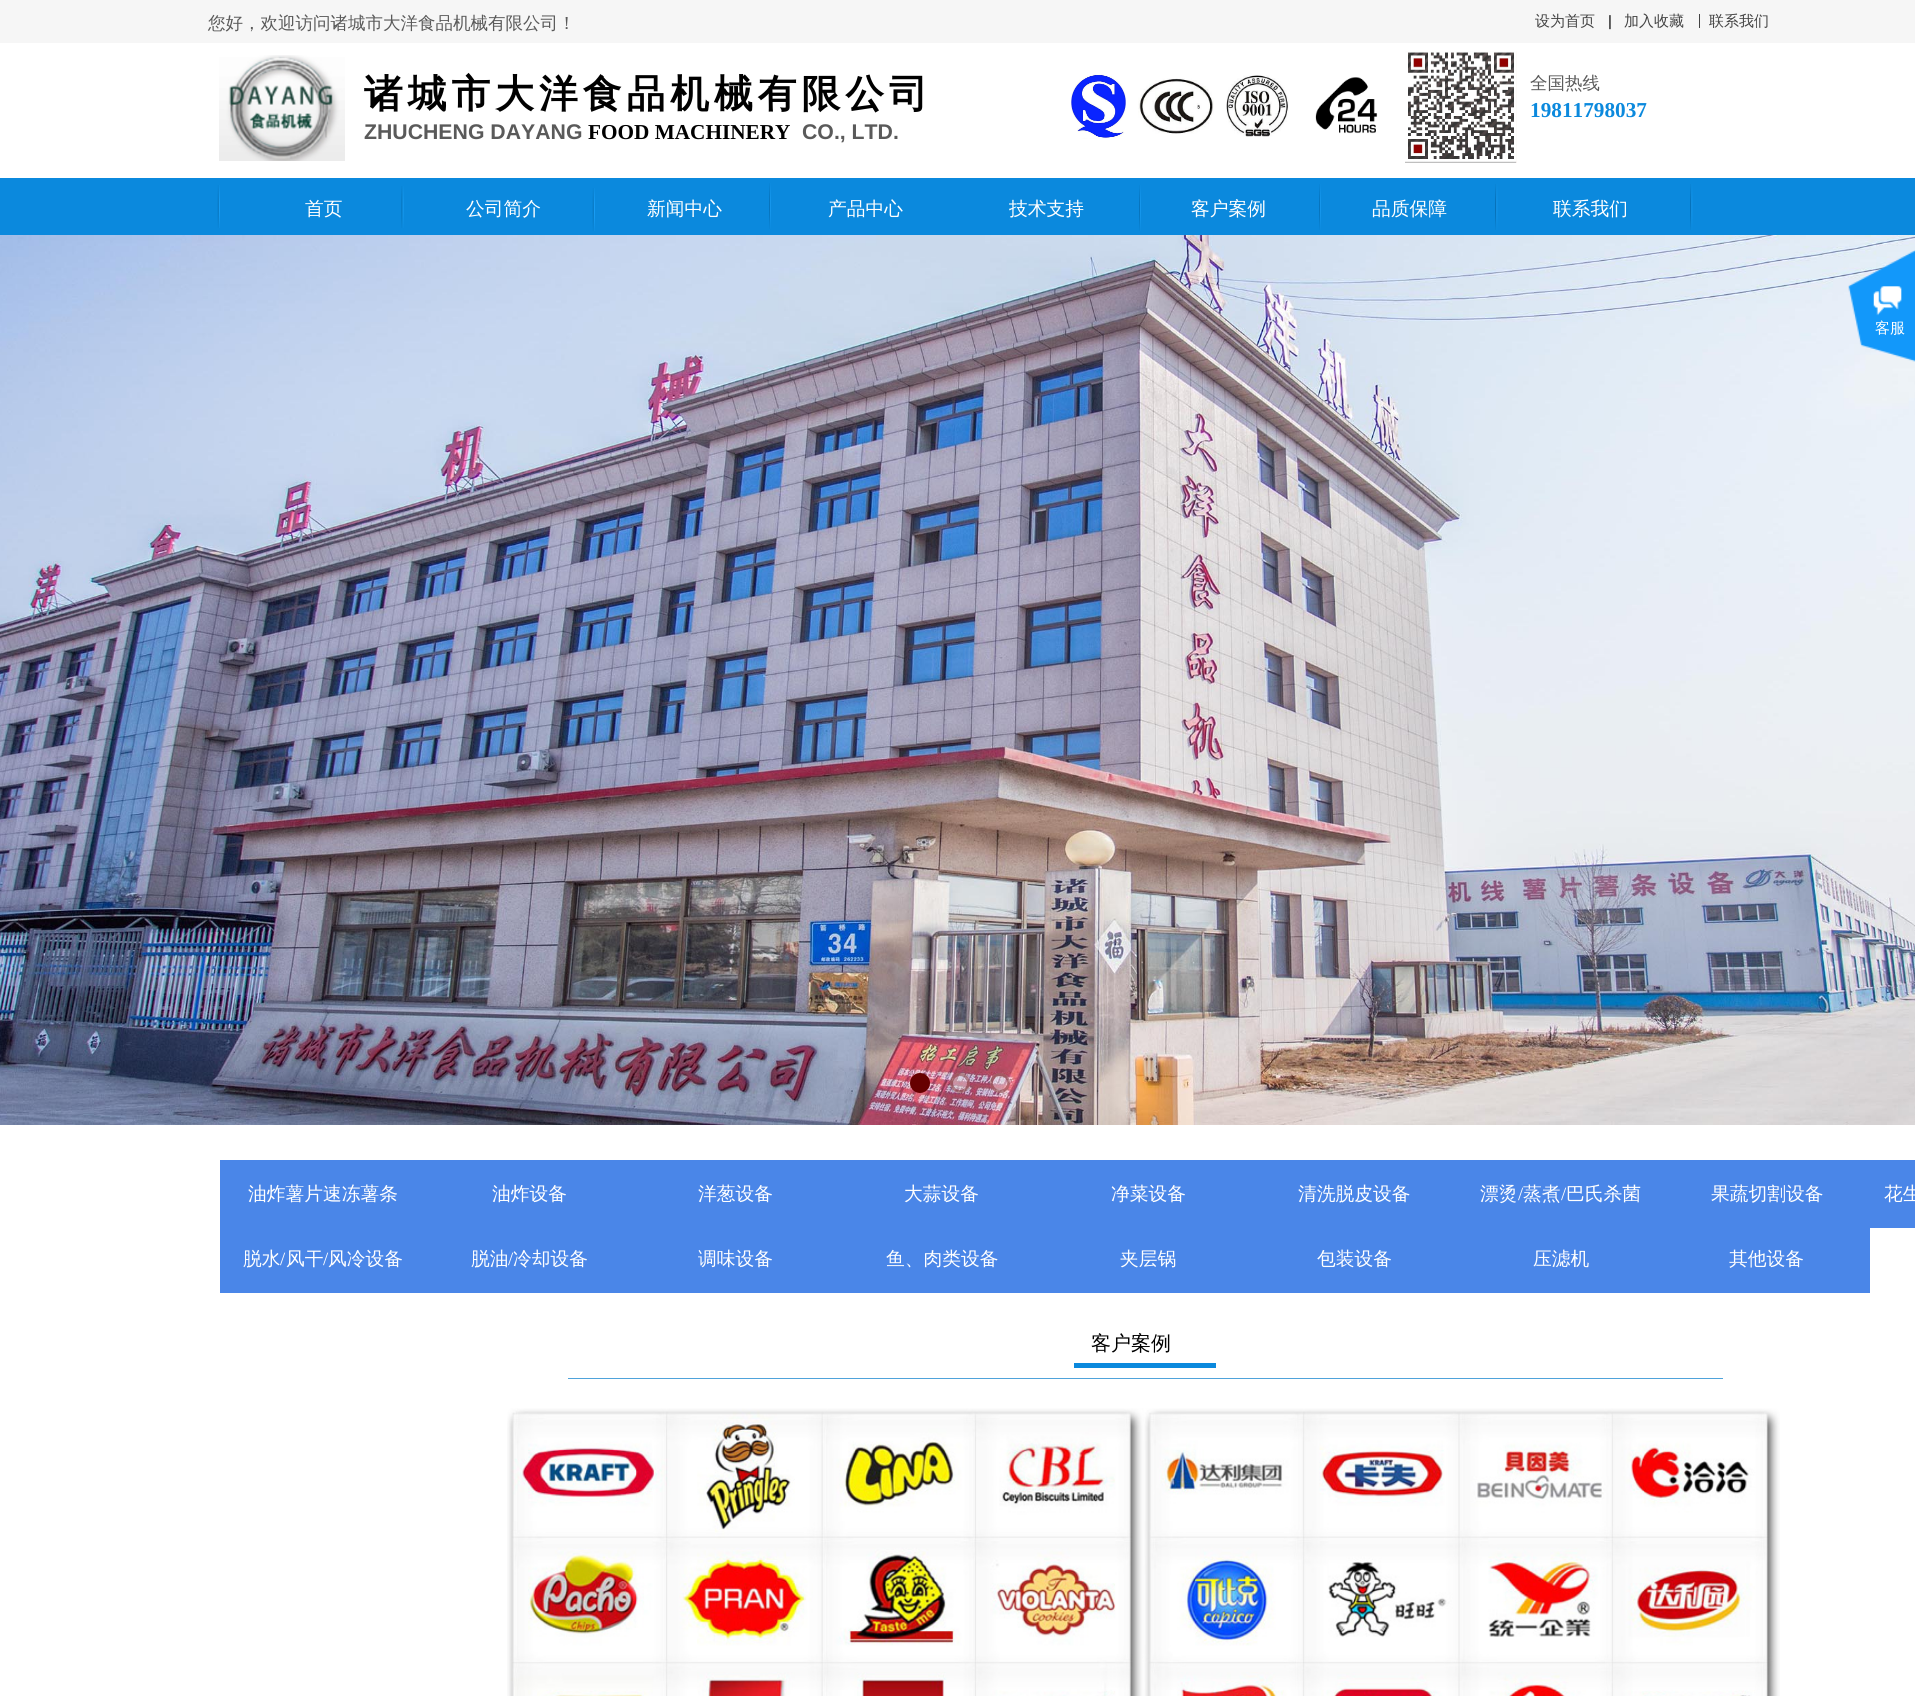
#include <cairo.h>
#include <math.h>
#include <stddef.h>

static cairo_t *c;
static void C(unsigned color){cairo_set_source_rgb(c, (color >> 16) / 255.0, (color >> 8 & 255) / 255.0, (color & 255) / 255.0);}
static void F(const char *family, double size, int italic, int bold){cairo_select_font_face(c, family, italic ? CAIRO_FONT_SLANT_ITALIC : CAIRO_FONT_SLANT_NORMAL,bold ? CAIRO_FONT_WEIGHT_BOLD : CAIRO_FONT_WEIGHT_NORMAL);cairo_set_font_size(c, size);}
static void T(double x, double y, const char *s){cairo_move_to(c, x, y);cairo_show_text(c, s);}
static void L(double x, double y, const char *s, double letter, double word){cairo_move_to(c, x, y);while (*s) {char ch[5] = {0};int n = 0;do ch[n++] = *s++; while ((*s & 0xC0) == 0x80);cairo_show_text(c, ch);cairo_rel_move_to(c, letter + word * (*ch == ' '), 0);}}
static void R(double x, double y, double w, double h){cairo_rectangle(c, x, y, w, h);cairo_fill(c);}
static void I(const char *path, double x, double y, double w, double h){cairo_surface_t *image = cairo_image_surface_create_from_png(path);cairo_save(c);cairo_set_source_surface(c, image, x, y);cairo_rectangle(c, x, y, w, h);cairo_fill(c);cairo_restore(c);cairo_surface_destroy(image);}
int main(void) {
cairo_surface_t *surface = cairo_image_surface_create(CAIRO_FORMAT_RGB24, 1915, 1696);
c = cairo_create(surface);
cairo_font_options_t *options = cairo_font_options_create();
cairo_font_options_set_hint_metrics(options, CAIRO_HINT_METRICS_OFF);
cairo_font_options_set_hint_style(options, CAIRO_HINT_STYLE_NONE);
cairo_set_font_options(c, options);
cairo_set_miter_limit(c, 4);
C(0xffffff);
cairo_paint(c);
C(0xf6f6f6);
R(0,0,1915,43);
F("WenQuanYi Zen Hei Medium",17.5,0,0);
C(0x5a5a5a);
T(208,29,"您好，欢迎访问诸城市大洋食品机械有限公司！");
F("WenQuanYi Zen Hei Medium",15,0,0);
C(0x434343);
T(1535,26,"设为首页");
F("Liberation Sans",15,0,0);
C(0x000000);
T(1608,26,"|");
F("WenQuanYi Zen Hei Medium",15,0,0);
C(0x434343);
T(1624,26,"加入收藏");
R(1699,14,1,14);
T(1709,26,"联系我们");
I("1.png",219,55,126,106);
F("WenQuanYi Zen Hei",38.75,0,1);
C(0x000000);
L(364,107,"诸城市大洋食品机械有限公司",5,0);
I("2.png",1071,74,55,65);
I("3.png",1138,78,76,56);
I("4.png",1226,75,63,62);
I("5.png",1315,77,63,57);
I("6.png",1405,51,112,112);
F("WenQuanYi Zen Hei Medium",17.5,0,0);
C(0x5a5a5a);
T(1530,89,"全国热线");
F("Liberation Serif",21.25,0,1);
C(0x0b89dd);
T(1530,117,"19811798037");
F("Liberation Sans",21.25,0,1);
C(0x5a5a5a);
T(364,139,"ZHUCHENG DAYANG");
F("Liberation Serif",21.25,0,1);
C(0x000000);
T(588,139,"FOOD MACHINERY");
F("Liberation Sans",21.25,0,1);
C(0x5a5a5a);
T(802,139,"CO., LTD.");
C(0x0b89dd);
R(0,178,1915,57);
I("7.png",217,185,3,43);
I("8.png",401,186,3,42);
I("9.png",592,188,3,43);
I("10.png",769,183,2,46);
I("11.png",1139,185,2,46);
I("12.png",1319,184,2,46);
I("13.png",1495,184,3,46);
F("WenQuanYi Zen Hei Medium",18.75,0,0);
C(0xffffff);
T(305,215,"首页");
T(466,215,"公司简介");
T(647,215,"新闻中心");
T(828,215,"产品中心");
T(1009,215,"技术支持");
T(1191,215,"客户案例");
T(1372,215,"品质保障");
T(1553,215,"联系我们");
I("13.png",1690,184,3,46);
I("14.png",0,235,1915,890);
C(0x660000);
cairo_arc(c,920,1083,8.5,0,2 * M_PI);
cairo_fill_preserve(c);
cairo_set_line_width(c,3);
cairo_stroke(c);
cairo_set_source_rgba(c,1,1,1,0.4);
cairo_arc(c,960,1083,10,0,2 * M_PI);
cairo_fill(c);
cairo_arc(c,960,1083,8.5,0,2 * M_PI);
cairo_set_source_rgba(c,0.4,0,0,0.4);
cairo_stroke(c);
cairo_set_source_rgba(c,1,1,1,0.4);
cairo_arc(c,1000,1083,10,0,2 * M_PI);
cairo_fill(c);
cairo_arc(c,1000,1083,8.5,0,2 * M_PI);
cairo_set_source_rgba(c,0.4,0,0,0.4);
cairo_stroke(c);
C(0x4a86e8);
R(220,1160,1650,65);
C(0xffffff);
T(248,1200,"油炸薯片速冻薯条");
T(492,1200,"油炸设备");
T(698,1200,"洋葱设备");
T(904,1200,"大蒜设备");
T(1111,1200,"净菜设备");
T(1298,1200,"清洗脱皮设备");
T(1480,1200,"漂烫");
F("Liberation Serif",18.75,0,0);
T(1518,1200,"/");
F("WenQuanYi Zen Hei Medium",18.75,0,0);
T(1523,1200,"蒸煮");
F("Liberation Serif",18.75,0,0);
T(1561,1200,"/");
F("WenQuanYi Zen Hei Medium",18.75,0,0);
T(1566,1200,"巴氏杀菌");
T(1711,1200,"果蔬切割设备");
C(0x4a86e8);
R(1870,1160,45,68);
C(0xffffff);
T(1884,1200,"花生");
C(0x4a86e8);
R(220,1225,1650,68);
C(0xffffff);
T(243,1265,"脱水");
F("Liberation Serif",18.75,0,0);
T(280,1265,"/");
F("WenQuanYi Zen Hei Medium",18.75,0,0);
T(286,1265,"风干");
F("Liberation Serif",18.75,0,0);
T(323,1265,"/");
F("WenQuanYi Zen Hei Medium",18.75,0,0);
T(328,1265,"风冷设备");
T(471,1265,"脱油");
F("Liberation Serif",18.75,0,0);
T(508,1265,"/");
F("WenQuanYi Zen Hei Medium",18.75,0,0);
T(513,1265,"冷却设备");
T(698,1265,"调味设备");
T(886,1265,"鱼、肉类设备");
T(1120,1265,"夹层锅");
T(1317,1265,"包装设备");
T(1533,1265,"压滤机");
T(1729,1265,"其他设备");
F("WenQuanYi Zen Hei Medium",20,0,0);
C(0x000000);
T(1091,1350,"客户案例");
C(0x0b89dd);
R(1074,1363,142,5);
C(0x4fa3db);
R(568,1378,1155,1);
I("15.png",507,1408,1273,288);
I("16.png",1848,250,67,112);
F("WenQuanYi Zen Hei Medium",15,0,0);
C(0xffffff);
T(1875,333,"客服");
cairo_surface_write_to_png(surface, "o.png");
cairo_font_options_destroy(options);
cairo_destroy(c);
cairo_surface_destroy(surface);
return 0;
}
